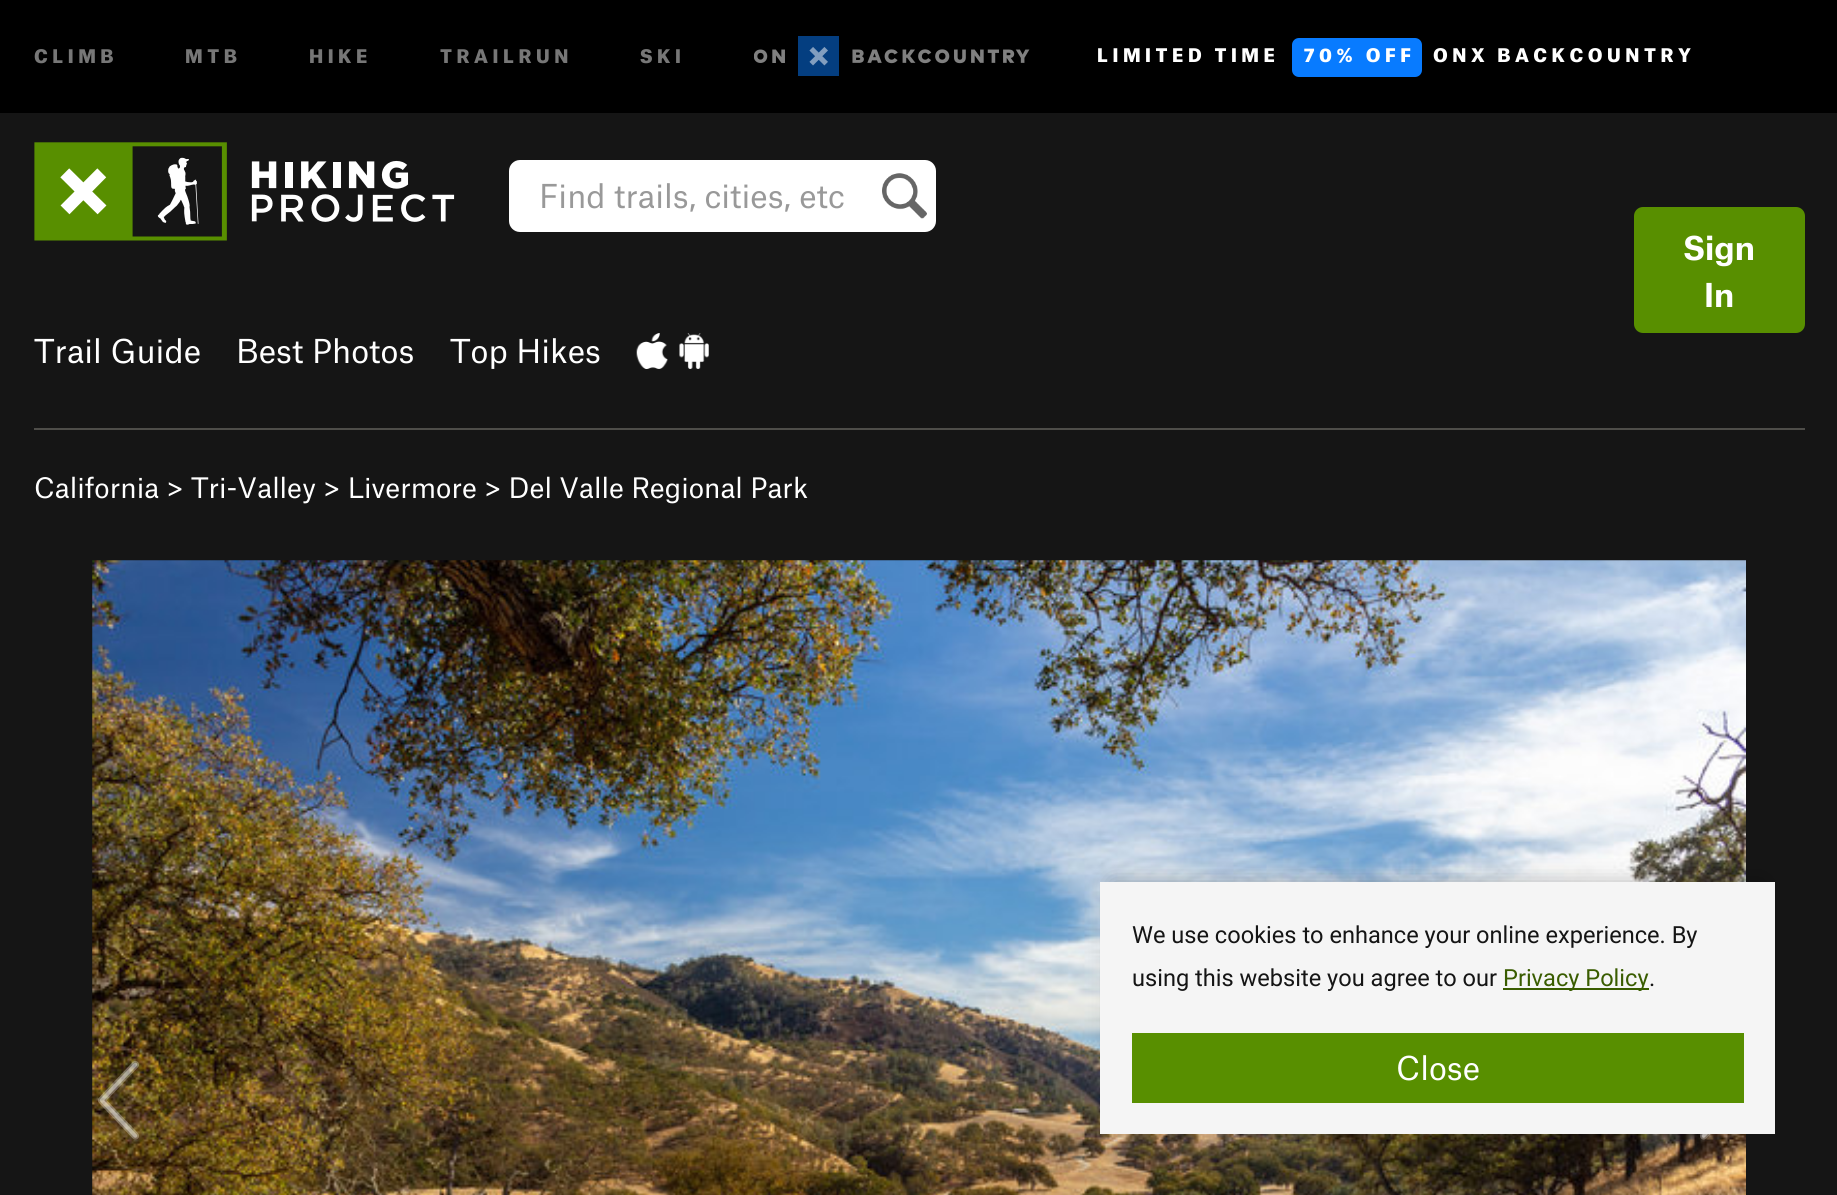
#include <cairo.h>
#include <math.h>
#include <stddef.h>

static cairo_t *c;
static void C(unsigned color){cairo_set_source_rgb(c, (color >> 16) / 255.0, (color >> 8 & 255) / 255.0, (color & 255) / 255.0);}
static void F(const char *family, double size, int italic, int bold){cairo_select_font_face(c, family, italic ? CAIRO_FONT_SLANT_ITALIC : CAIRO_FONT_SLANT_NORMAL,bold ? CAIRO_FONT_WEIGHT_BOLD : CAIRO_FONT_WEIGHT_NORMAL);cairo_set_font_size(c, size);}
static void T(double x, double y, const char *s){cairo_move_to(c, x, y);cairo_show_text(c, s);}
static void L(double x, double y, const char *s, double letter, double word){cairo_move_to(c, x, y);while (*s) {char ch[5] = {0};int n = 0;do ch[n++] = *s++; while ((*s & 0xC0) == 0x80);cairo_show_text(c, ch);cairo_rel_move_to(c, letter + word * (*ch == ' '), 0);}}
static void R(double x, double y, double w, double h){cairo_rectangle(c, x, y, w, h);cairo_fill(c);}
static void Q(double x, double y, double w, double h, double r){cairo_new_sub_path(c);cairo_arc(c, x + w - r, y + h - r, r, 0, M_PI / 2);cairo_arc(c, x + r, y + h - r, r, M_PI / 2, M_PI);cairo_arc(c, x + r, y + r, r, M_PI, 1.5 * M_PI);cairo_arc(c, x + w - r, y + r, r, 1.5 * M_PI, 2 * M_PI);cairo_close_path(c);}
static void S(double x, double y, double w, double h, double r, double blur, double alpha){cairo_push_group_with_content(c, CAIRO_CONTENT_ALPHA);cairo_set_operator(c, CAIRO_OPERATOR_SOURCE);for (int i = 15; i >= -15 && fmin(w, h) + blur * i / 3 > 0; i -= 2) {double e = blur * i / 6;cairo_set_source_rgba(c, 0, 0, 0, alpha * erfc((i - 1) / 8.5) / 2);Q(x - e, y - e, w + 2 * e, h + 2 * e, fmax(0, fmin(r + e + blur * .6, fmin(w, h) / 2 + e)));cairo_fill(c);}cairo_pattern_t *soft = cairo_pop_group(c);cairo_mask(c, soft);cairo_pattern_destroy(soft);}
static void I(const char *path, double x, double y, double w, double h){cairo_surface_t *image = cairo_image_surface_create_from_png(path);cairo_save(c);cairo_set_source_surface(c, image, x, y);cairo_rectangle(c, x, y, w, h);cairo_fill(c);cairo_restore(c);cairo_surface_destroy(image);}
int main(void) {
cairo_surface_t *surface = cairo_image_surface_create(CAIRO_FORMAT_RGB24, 1837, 1195);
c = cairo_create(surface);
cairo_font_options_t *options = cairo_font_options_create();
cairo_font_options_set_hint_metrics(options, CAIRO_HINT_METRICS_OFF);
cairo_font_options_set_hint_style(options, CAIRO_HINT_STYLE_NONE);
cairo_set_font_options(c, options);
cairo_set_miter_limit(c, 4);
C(0x151515);
cairo_paint(c);
C(0x000000);
R(0,0,1837,113);
F("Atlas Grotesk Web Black",18,0,0);
C(0x777777);
L(34,63,"CLIMB",4.5,0);
L(185,63,"MTB",4.5,0);
L(309,63,"HIKE",4.5,0);
L(440,63,"TRAILRUN",4.5,0);
L(640,63,"SKI",4.5,0);
I("1.png",754,36,276,40);
C(0xffffff);
L(1097,62,"LIMITED TIME",4.5,0);
C(0x087bff);
Q(1292,38,130,39,7);
cairo_fill(c);
C(0xffffff);
L(1304,62,"70% OFF",4.5,0);
L(1433,62,"ONX BACKCOUNTRY",4.5,0);
I("2.png",34,142,421,99);
Q(509,160,427,72,11);
cairo_fill(c);
I("3.png",882,173,45,46);
F("Atlas Grotesk Web",31.5,0,0);
C(0x999999);
T(539,208,"Find trails, cities, etc");
C(0xffffff);
T(34,363,"Trail Guide");
T(236,363,"Best Photos");
T(450,363,"Top Hikes");
I("4.png",636,333,32,36);
I("5.png",679,333,30,36);
C(0x588f00);
Q(1634,207,171,126,9);
cairo_fill(c);
F("Atlas Grotesk Web",31.5,0,1);
C(0xffffff);
T(1683,260,"Sign");
T(1704,307,"In");
C(0x4e4d49);
R(34,428,1771,2);
F("Atlas Grotesk Web",27,0,0);
C(0xffffff);
T(34,498,"California > Tri-Valley > Livermore > Del Valle Regional Park");
I("6.png",92,560,1654,635);
I("7.png",93,1056,51,88);
I("8.png",1695,1134,22,7);
C(0x000000);
S(1112,882,652,230,0,11,.25);
C(0xf5f5f5);
R(1100,882,675,252);
F("Roboto",23.6,0,0);
C(0x151515);
T(1132,943,"We use cookies to enhance your online experience. By");
T(1132,986,"using this website you agree to our");
C(0x395c00);
R(1503,988,146,2);
T(1503,986,"Privacy Policy");
C(0x151515);
T(1649,986,".");
C(0x588f00);
R(1132,1033,612,70);
F("Atlas Grotesk Web",31.5,0,0);
C(0xffffff);
T(1396,1080,"Close");
cairo_surface_write_to_png(surface, "o.png");
cairo_font_options_destroy(options);
cairo_destroy(c);
cairo_surface_destroy(surface);
return 0;
}
